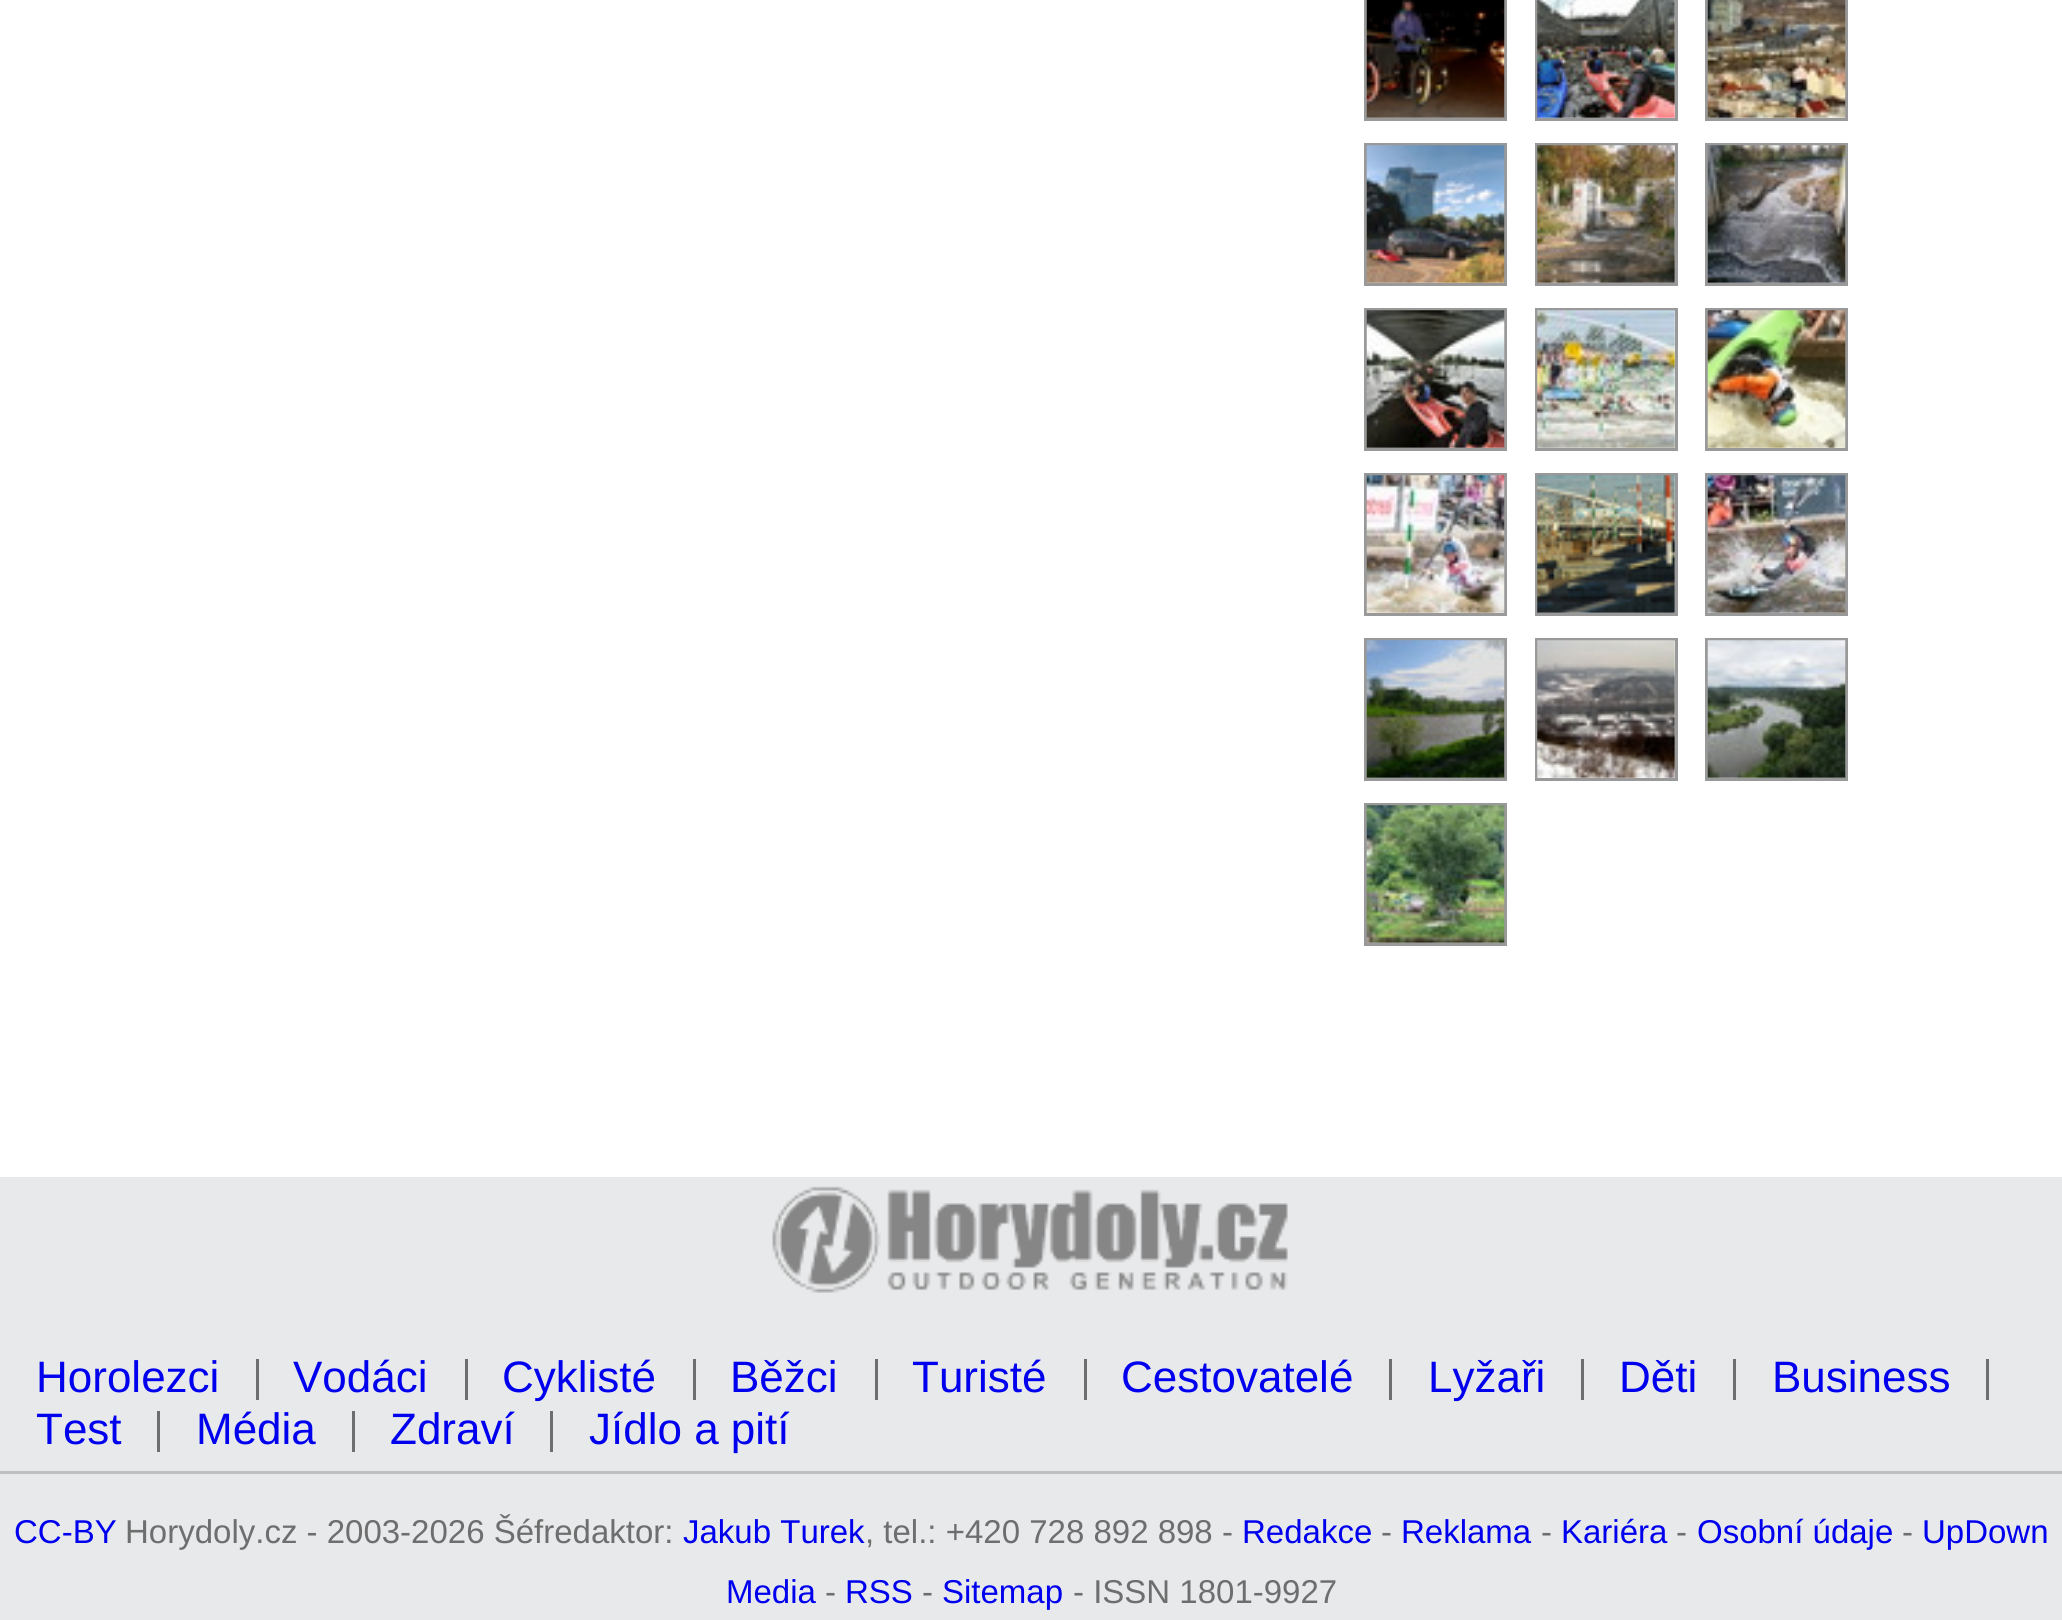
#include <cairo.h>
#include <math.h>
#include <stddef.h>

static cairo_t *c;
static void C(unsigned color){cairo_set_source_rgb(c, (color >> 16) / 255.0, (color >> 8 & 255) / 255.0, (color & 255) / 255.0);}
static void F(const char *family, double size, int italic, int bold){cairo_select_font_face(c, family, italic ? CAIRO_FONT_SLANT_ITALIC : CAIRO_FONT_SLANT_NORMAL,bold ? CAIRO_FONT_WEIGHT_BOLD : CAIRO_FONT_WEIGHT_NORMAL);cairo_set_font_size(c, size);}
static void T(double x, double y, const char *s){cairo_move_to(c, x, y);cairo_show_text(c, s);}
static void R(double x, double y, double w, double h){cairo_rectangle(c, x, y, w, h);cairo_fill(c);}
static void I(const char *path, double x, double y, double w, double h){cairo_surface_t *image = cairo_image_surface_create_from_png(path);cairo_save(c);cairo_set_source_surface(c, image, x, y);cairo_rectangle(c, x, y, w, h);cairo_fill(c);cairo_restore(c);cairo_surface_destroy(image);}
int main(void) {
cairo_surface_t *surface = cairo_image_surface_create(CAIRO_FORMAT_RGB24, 2062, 1620);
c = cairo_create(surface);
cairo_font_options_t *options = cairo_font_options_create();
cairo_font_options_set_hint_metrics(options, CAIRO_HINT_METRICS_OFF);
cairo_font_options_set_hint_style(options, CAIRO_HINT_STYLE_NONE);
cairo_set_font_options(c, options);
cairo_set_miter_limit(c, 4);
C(0xe7e9ea);
cairo_paint(c);
C(0xffffff);
R(0,0,2062,1177);
cairo_rectangle(c,1365.5,-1.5,140,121);
C(0x999999);
cairo_set_line_width(c,3);
cairo_stroke(c);
I("1.png",1366,0,139,118);
cairo_rectangle(c,1536.5,-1.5,140,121);
cairo_stroke(c);
I("2.png",1537,0,138,118);
cairo_rectangle(c,1706.5,-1.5,140,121);
cairo_stroke(c);
I("3.png",1707,0,139,118);
cairo_rectangle(c,1365.5,144.5,140,140);
cairo_stroke(c);
I("4.png",1366,145,139,138);
cairo_rectangle(c,1536.5,144.5,140,140);
cairo_stroke(c);
I("5.png",1537,145,138,138);
cairo_rectangle(c,1706.5,144.5,140,140);
cairo_stroke(c);
I("6.png",1707,145,139,138);
cairo_rectangle(c,1365.5,309.5,140,140);
cairo_stroke(c);
I("7.png",1366,310,139,138);
cairo_rectangle(c,1536.5,309.5,140,140);
cairo_stroke(c);
I("8.png",1537,310,138,138);
cairo_rectangle(c,1706.5,309.5,140,140);
cairo_stroke(c);
I("9.png",1707,310,139,138);
cairo_rectangle(c,1365.5,474.5,140,140);
cairo_stroke(c);
I("10.png",1366,475,139,138);
cairo_rectangle(c,1536.5,474.5,140,140);
cairo_stroke(c);
I("11.png",1537,475,138,138);
cairo_rectangle(c,1706.5,474.5,140,140);
cairo_stroke(c);
I("12.png",1707,475,139,138);
cairo_rectangle(c,1365.5,639.5,140,140);
cairo_stroke(c);
I("13.png",1366,640,139,138);
cairo_rectangle(c,1536.5,639.5,140,140);
cairo_stroke(c);
I("14.png",1537,640,138,138);
cairo_rectangle(c,1706.5,639.5,140,140);
cairo_stroke(c);
I("15.png",1707,640,139,138);
cairo_rectangle(c,1365.5,804.5,140,140);
cairo_stroke(c);
I("16.png",1366,805,139,138);
I("17.png",772,1186,516,107);
C(0x6e6e6e);
R(256,1359,3,41);
F("Liberation Sans",44,0,0);
C(0x0000ee);
T(36,1392,"Horolezci");
C(0x6e6e6e);
R(465,1359,3,41);
C(0x0000ee);
T(293,1392,"Vodáci");
C(0x6e6e6e);
R(693,1359,3,41);
C(0x0000ee);
T(502,1392,"Cyklisté");
C(0x6e6e6e);
R(875,1359,3,41);
C(0x0000ee);
T(730,1392,"Běžci");
C(0x6e6e6e);
R(1084,1359,3,41);
C(0x0000ee);
T(912,1392,"Turisté");
C(0x6e6e6e);
R(1389,1359,3,41);
C(0x0000ee);
T(1121,1392,"Cestovatelé");
C(0x6e6e6e);
R(1581,1359,3,41);
C(0x0000ee);
T(1428,1392,"Lyžaři");
C(0x6e6e6e);
R(1733,1359,3,41);
C(0x0000ee);
T(1619,1392,"Děti");
C(0x6e6e6e);
R(1986,1359,3,41);
C(0x0000ee);
T(1772,1392,"Business");
C(0x6e6e6e);
R(157,1411,3,41);
C(0x0000ee);
T(36,1444,"Test");
C(0x6e6e6e);
R(352,1411,3,41);
C(0x0000ee);
T(196,1444,"Média");
C(0x6e6e6e);
R(550,1411,3,41);
C(0x0000ee);
T(390,1444,"Zdraví");
T(589,1444,"Jídlo a pití");
C(0xbdc0c2);
R(0,1471,2062,3);
F("Liberation Sans",33,0,0);
C(0x0000ee);
T(14,1543,"CC-BY");
C(0x6e6e6e);
T(125,1543,"Horydoly.cz - 2003-2026 Šéfredaktor:");
C(0x0000ee);
T(683,1543,"Jakub Turek");
C(0x6e6e6e);
T(865,1543,", tel.: +420 728 892 898 -");
C(0x0000ee);
T(1242,1543,"Redakce");
C(0x6e6e6e);
T(1381,1543,"-");
C(0x0000ee);
T(1401,1543,"Reklama");
C(0x6e6e6e);
T(1541,1543,"-");
C(0x0000ee);
T(1561,1543,"Kariéra");
C(0x6e6e6e);
T(1676,1543,"-");
C(0x0000ee);
T(1697,1543,"Osobní údaje");
C(0x6e6e6e);
T(1902,1543,"-");
C(0x0000ee);
T(1922,1543,"UpDown");
T(726,1603,"Media");
C(0x6e6e6e);
T(825,1603,"-");
C(0x0000ee);
T(845,1603,"RSS");
C(0x6e6e6e);
T(922,1603,"-");
C(0x0000ee);
T(942,1603,"Sitemap");
C(0x6e6e6e);
T(1073,1603,"- ISSN 1801-9927");
cairo_surface_write_to_png(surface, "o.png");
cairo_font_options_destroy(options);
cairo_destroy(c);
cairo_surface_destroy(surface);
return 0;
}
